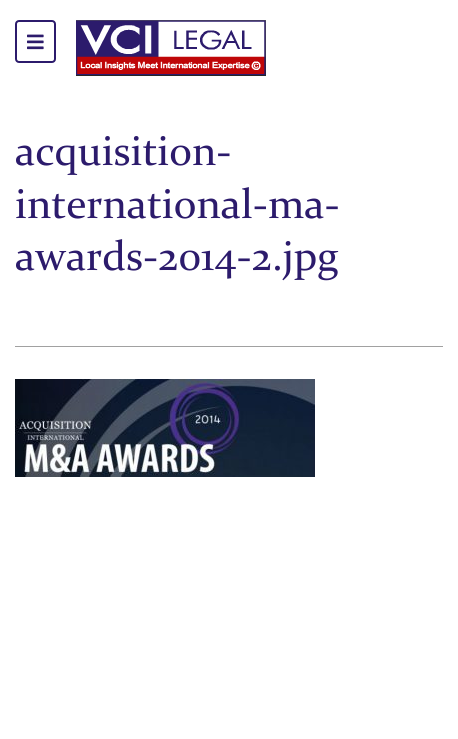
#include <cairo.h>
#include <math.h>
#include <stddef.h>

static cairo_t *c;
static void C(unsigned color){cairo_set_source_rgb(c, (color >> 16) / 255.0, (color >> 8 & 255) / 255.0, (color & 255) / 255.0);}
static void F(const char *family, double size, int italic, int bold){cairo_select_font_face(c, family, italic ? CAIRO_FONT_SLANT_ITALIC : CAIRO_FONT_SLANT_NORMAL,bold ? CAIRO_FONT_WEIGHT_BOLD : CAIRO_FONT_WEIGHT_NORMAL);cairo_set_font_size(c, size);}
static void T(double x, double y, const char *s){cairo_move_to(c, x, y);cairo_show_text(c, s);}
static void R(double x, double y, double w, double h){cairo_rectangle(c, x, y, w, h);cairo_fill(c);}
static void Q(double x, double y, double w, double h, double r){cairo_new_sub_path(c);cairo_arc(c, x + w - r, y + h - r, r, 0, M_PI / 2);cairo_arc(c, x + r, y + h - r, r, M_PI / 2, M_PI);cairo_arc(c, x + r, y + r, r, M_PI, 1.5 * M_PI);cairo_arc(c, x + w - r, y + r, r, 1.5 * M_PI, 2 * M_PI);cairo_close_path(c);}
static void I(const char *path, double x, double y, double w, double h){cairo_surface_t *image = cairo_image_surface_create_from_png(path);cairo_save(c);cairo_set_source_surface(c, image, x, y);cairo_rectangle(c, x, y, w, h);cairo_fill(c);cairo_restore(c);cairo_surface_destroy(image);}
int main(void) {
cairo_surface_t *surface = cairo_image_surface_create(CAIRO_FORMAT_RGB24, 458, 739);
c = cairo_create(surface);
cairo_font_options_t *options = cairo_font_options_create();
cairo_font_options_set_hint_metrics(options, CAIRO_HINT_METRICS_OFF);
cairo_font_options_set_hint_style(options, CAIRO_HINT_STYLE_NONE);
cairo_set_font_options(c, options);
cairo_set_miter_limit(c, 4);
C(0xffffff);
cairo_paint(c);
Q(16,21,39,41,3);
C(0x2c1b6c);
cairo_stroke(c);
I("1.png",27,34,17,16);
I("2.png",76,20,190,56);
F("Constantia",42,0,0);
T(15,165,"acquisition-");
T(15,218,"international-ma-");
T(15,270,"awards-2014-2.jpg");
C(0xa1a1a1);
R(15,346,428,1);
I("3.png",15,379,300,98);
cairo_surface_write_to_png(surface, "o.png");
cairo_font_options_destroy(options);
cairo_destroy(c);
cairo_surface_destroy(surface);
return 0;
}
